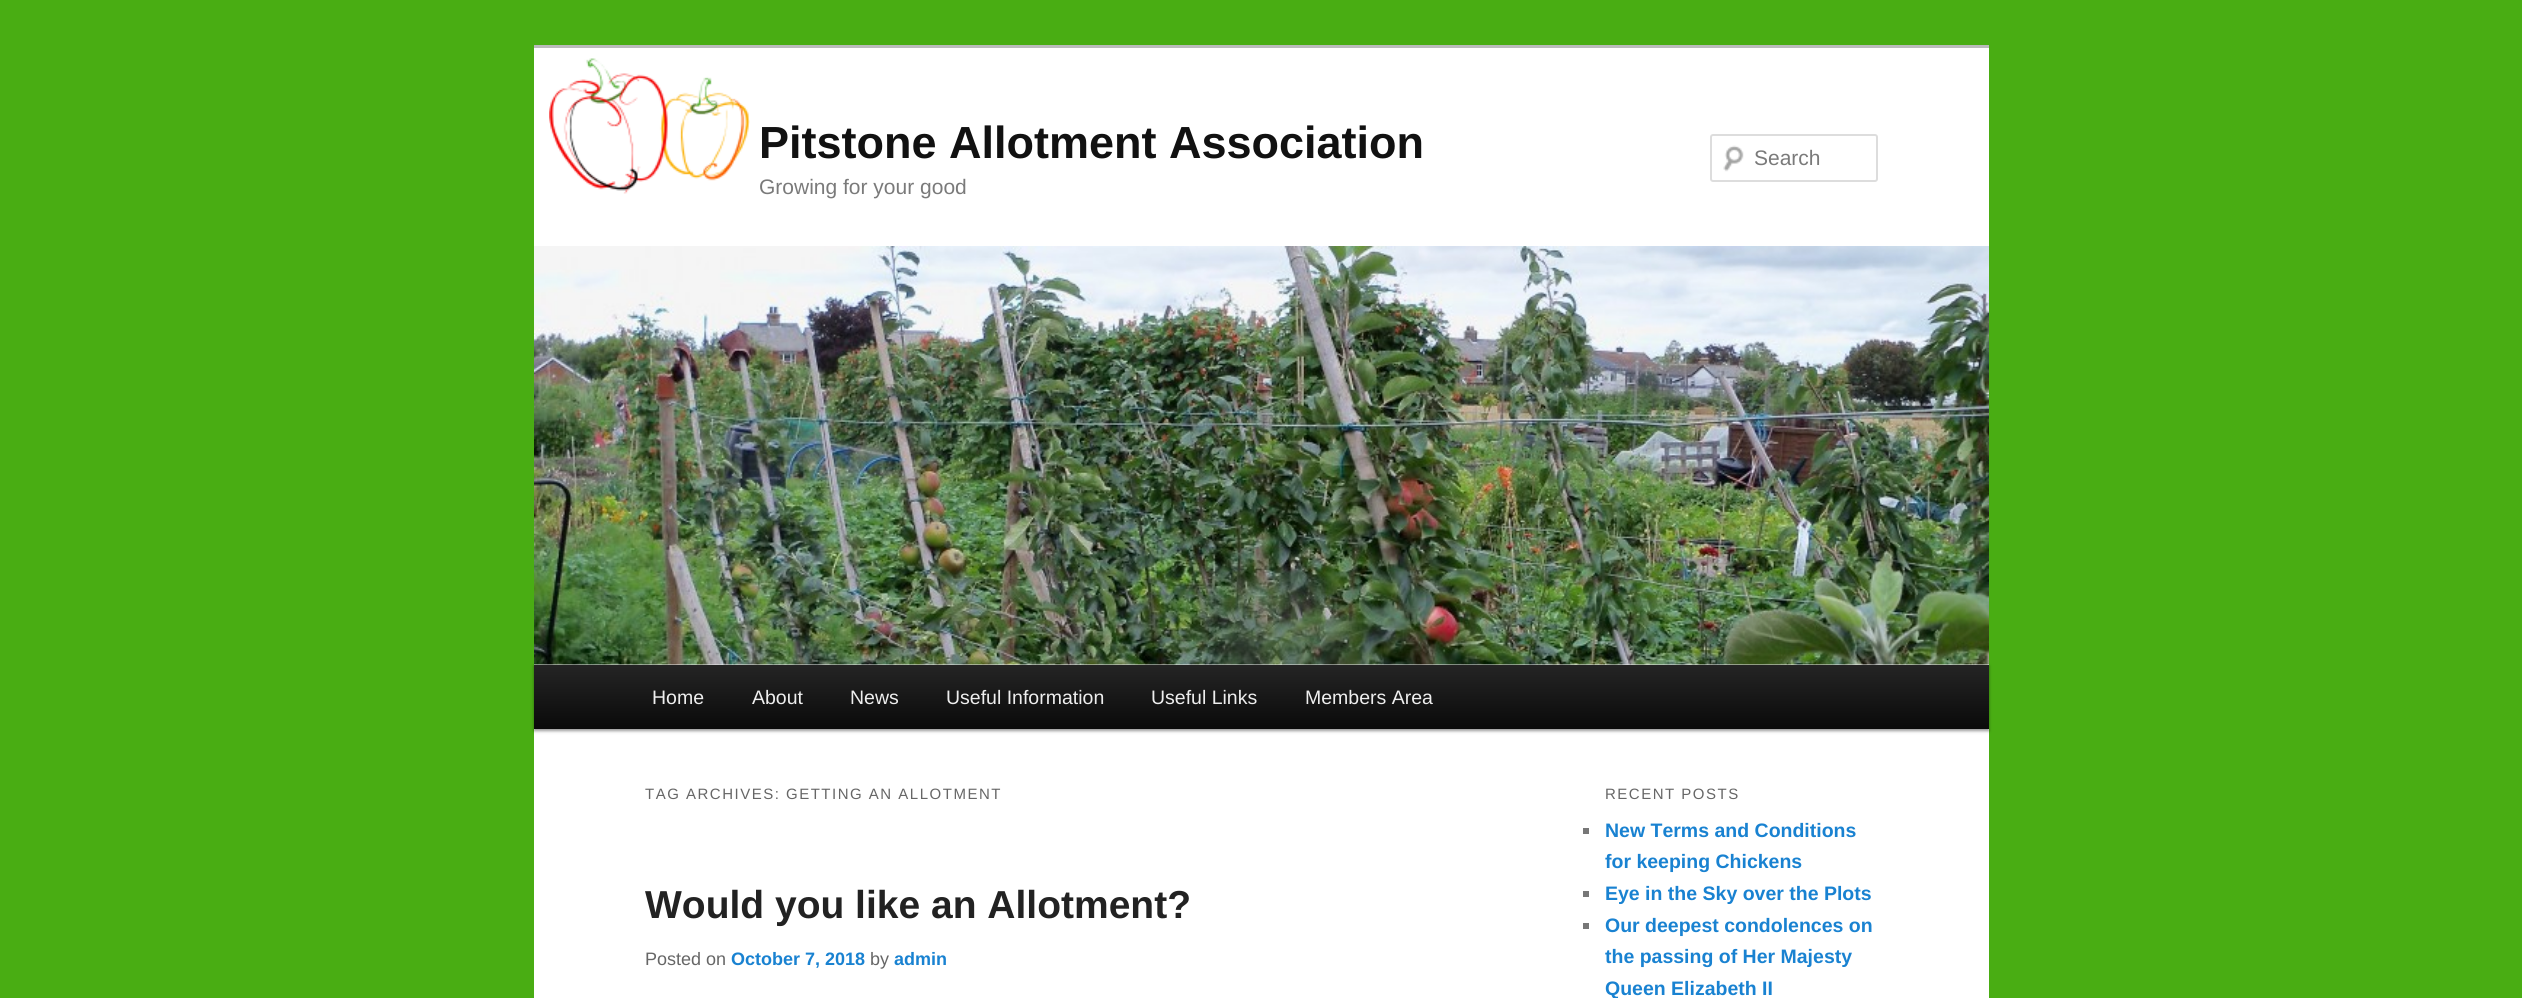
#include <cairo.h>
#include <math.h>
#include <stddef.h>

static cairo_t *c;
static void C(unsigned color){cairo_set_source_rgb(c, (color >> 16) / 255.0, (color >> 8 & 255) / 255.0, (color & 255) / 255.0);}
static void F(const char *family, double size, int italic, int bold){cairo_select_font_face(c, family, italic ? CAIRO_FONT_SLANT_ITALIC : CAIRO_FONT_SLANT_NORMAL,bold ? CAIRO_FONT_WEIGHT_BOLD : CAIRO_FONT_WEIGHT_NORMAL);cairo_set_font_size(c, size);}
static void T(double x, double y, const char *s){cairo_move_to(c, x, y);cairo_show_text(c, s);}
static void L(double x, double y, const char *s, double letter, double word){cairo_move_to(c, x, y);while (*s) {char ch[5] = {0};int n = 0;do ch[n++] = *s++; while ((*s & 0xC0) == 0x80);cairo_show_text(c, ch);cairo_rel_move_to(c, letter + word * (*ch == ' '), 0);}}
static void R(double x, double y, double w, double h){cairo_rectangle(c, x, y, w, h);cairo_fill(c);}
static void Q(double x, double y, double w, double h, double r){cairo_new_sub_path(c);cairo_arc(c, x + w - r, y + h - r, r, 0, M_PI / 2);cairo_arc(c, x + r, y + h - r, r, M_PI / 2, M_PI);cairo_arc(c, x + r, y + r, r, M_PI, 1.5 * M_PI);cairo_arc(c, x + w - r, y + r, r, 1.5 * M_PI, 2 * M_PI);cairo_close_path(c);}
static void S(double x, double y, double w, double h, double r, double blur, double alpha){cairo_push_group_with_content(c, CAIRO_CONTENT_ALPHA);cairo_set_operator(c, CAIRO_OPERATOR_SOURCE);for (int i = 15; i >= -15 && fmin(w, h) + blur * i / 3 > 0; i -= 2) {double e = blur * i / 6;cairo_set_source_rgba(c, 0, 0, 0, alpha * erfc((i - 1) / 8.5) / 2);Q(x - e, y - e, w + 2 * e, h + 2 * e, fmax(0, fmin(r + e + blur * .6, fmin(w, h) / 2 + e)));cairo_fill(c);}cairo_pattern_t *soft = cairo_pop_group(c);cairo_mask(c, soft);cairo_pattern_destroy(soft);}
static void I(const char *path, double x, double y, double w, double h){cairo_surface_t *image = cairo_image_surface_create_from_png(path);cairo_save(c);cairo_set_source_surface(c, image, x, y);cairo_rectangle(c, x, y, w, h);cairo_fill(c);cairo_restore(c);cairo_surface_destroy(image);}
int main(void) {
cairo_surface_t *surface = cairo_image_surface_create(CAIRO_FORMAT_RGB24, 2522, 998);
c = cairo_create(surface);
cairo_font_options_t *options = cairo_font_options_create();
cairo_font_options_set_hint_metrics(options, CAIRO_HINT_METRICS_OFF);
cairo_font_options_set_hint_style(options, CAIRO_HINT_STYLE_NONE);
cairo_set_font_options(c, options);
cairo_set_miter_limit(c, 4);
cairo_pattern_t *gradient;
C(0x49ad13);
cairo_paint(c);
C(0xffffff);
R(534,48,1455,950);
C(0xbbbbbb);
R(534,45,1455,3);
I("1.png",549,58,201,136);
F("Liberation Sans",45,0,1);
C(0x111111);
T(759,158,"Pitstone Allotment Association");
F("Liberation Sans",21,0,0);
C(0x7a7a7a);
T(759,194,"Growing for your good");
I("2.png",1723,145,21,27);
Q(1711,135,166,46,2);
C(0xdddddd);
cairo_stroke(c);
C(0x7a7a7a);
T(1754,165,"Search");
C(0x000000);
S(534,666,1455,65,0,1.5,.4);
I("3.png",534,246,1455,419);
gradient = cairo_pattern_create_linear(1262,664,1262,729);
cairo_pattern_add_color_stop_rgba(gradient,0,0.145,0.145,0.145,1);
cairo_pattern_add_color_stop_rgba(gradient,1,0.039,0.039,0.039,1);
cairo_set_source(c,gradient);
cairo_pattern_destroy(gradient);
R(534,665,1455,64);
F("Liberation Sans",19.5,0,0);
C(0xeeeeee);
T(652,704,"Home");
T(752,704,"About");
T(850,704,"News");
T(946,704,"Useful Information");
T(1151,704,"Useful Links");
T(1305,704,"Members Area");
F("Liberation Sans",15,0,0);
C(0x666666);
L(645,799,"TAG ARCHIVES: GETTING AN ALLOTMENT",1.5,0);
F("Liberation Sans",39,0,1);
C(0x222222);
T(645,918,"Would you like an Allotment?");
F("Liberation Sans",18,0,0);
C(0x666666);
T(645,965,"Posted on");
F("Liberation Sans",18,0,1);
C(0x1982d1);
T(731,965,"October 7, 2018");
F("Liberation Sans",18,0,0);
C(0x666666);
T(870,965,"by");
F("Liberation Sans",18,0,1);
C(0x1982d1);
T(894,965,"admin");
F("Liberation Sans",15,0,0);
C(0x666666);
L(1605,799,"RECENT POSTS",1.5,0);
C(0x777777);
R(1583,828,6,6);
F("Liberation Sans",19.5,0,1);
C(0x1982d1);
T(1605,837,"New Terms and Conditions");
T(1605,868,"for keeping Chickens");
C(0x777777);
R(1583,891,6,6);
C(0x1982d1);
T(1605,900,"Eye in the Sky over the Plots");
C(0x777777);
R(1583,923,6,6);
C(0x1982d1);
T(1605,932,"Our deepest condolences on");
T(1605,963,"the passing of Her Majesty");
T(1605,995,"Queen Elizabeth II");
cairo_surface_write_to_png(surface, "o.png");
cairo_font_options_destroy(options);
cairo_destroy(c);
cairo_surface_destroy(surface);
return 0;
}
